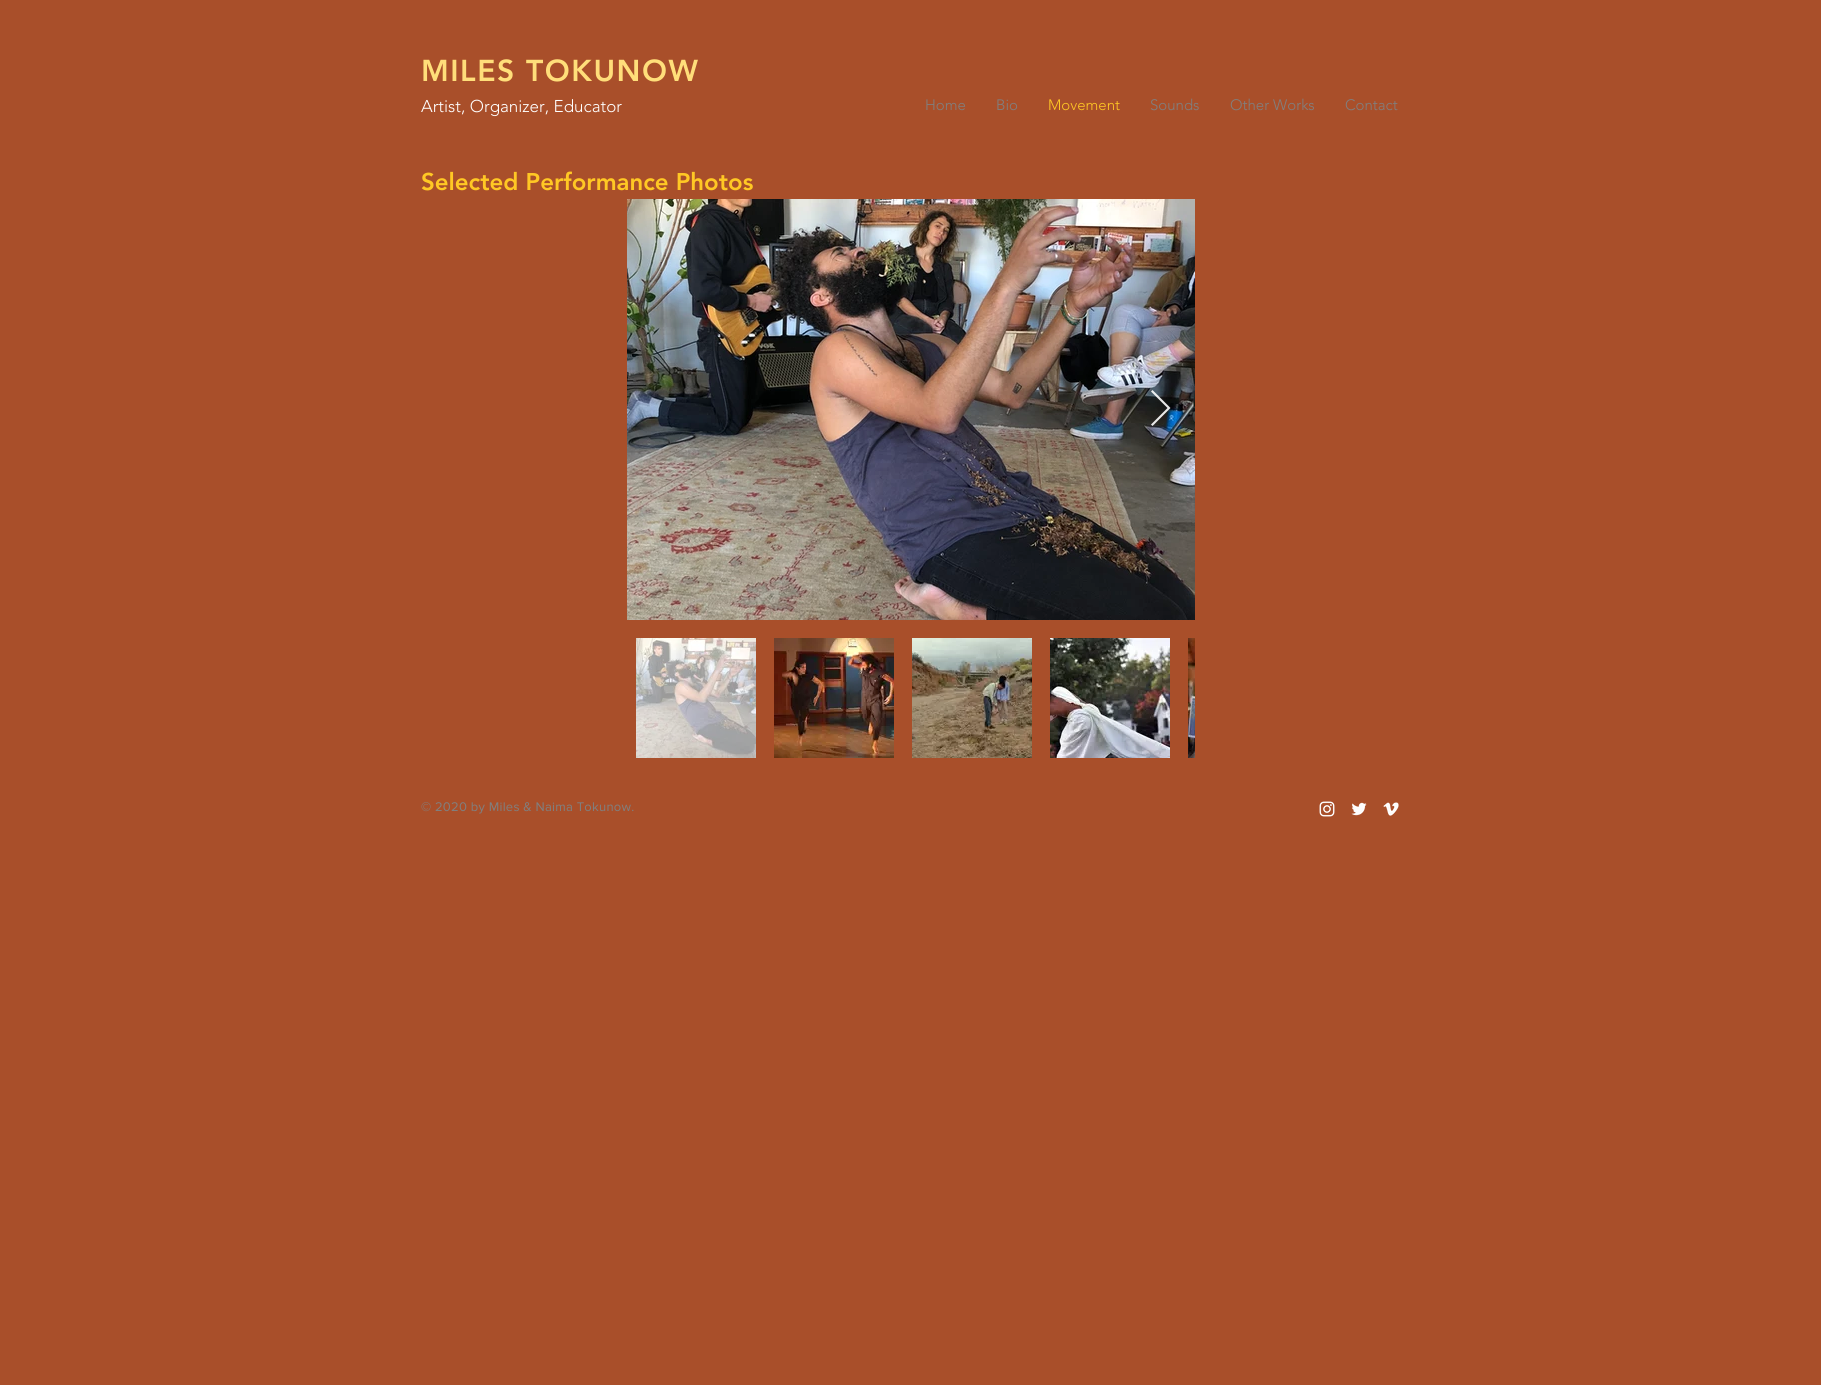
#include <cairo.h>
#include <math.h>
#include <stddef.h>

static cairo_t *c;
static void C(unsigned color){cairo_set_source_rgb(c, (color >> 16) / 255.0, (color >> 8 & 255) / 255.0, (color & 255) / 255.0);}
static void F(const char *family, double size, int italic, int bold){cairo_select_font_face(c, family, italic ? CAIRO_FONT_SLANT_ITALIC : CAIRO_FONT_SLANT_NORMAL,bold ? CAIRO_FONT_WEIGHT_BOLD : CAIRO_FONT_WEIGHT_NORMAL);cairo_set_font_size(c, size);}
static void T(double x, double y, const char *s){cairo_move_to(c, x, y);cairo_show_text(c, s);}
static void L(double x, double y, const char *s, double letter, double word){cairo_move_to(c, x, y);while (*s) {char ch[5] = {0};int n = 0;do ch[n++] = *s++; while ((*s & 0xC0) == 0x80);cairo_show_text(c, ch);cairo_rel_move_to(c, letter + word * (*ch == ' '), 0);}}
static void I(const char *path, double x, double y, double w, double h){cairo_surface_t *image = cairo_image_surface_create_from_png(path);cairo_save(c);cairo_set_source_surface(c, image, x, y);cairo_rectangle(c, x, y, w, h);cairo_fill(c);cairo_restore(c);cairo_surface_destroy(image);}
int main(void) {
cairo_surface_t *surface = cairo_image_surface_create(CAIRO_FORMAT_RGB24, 1821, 1385);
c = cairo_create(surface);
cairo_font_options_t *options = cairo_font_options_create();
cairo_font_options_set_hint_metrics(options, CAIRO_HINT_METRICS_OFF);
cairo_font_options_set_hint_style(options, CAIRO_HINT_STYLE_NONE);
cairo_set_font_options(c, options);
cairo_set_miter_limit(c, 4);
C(0xa94f2a);
cairo_paint(c);
F("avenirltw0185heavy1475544 Black",30,0,0);
C(0xffde7a);
L(421,81,"MILES TOKUNOW",1.5,0);
F("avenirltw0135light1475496 Light",17,0,0);
C(0xffffff);
T(421,112,"Artist, Organizer, Educator");
F("avenirltw0135light1475496 Light",15,0,0);
C(0x808080);
T(925,110,"Home");
T(996,110,"Bio");
C(0xffc824);
T(1048,110,"Movement");
C(0x808080);
T(1150,110,"Sounds");
T(1230,110,"Other Works");
T(1345,110,"Contact");
F("avenirltw0185heavy1475544 Black",24,0,0);
C(0xffc824);
T(421,190,"Selected Performance Photos");
I("1.png",627,199,568,421);
cairo_set_source_rgba(c,1,1,1,0.9);
cairo_new_path(c);
cairo_move_to(c,1151,391.5);
cairo_line_to(c,1152.5,390);
cairo_line_to(c,1170.5,408);
cairo_line_to(c,1152.5,426);
cairo_line_to(c,1151,424.5);
cairo_line_to(c,1167.5,408);
cairo_close_path(c);
cairo_fill(c);
I("2.png",636,638,120,120);
I("3.png",774,638,120,120);
I("4.png",912,638,120,120);
I("5.png",1050,638,120,120);
I("6.png",1188,638,7,120);
F("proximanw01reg",13,0,0);
C(0x808080);
L(421,811,"© 2020 by Miles & Naima Tokunow.",.25,0);
I("7.png",1319,801,16,16);
I("8.png",1351,802,16,14);
I("9.png",1383,802,16,14);
cairo_surface_write_to_png(surface, "o.png");
cairo_font_options_destroy(options);
cairo_destroy(c);
cairo_surface_destroy(surface);
return 0;
}
